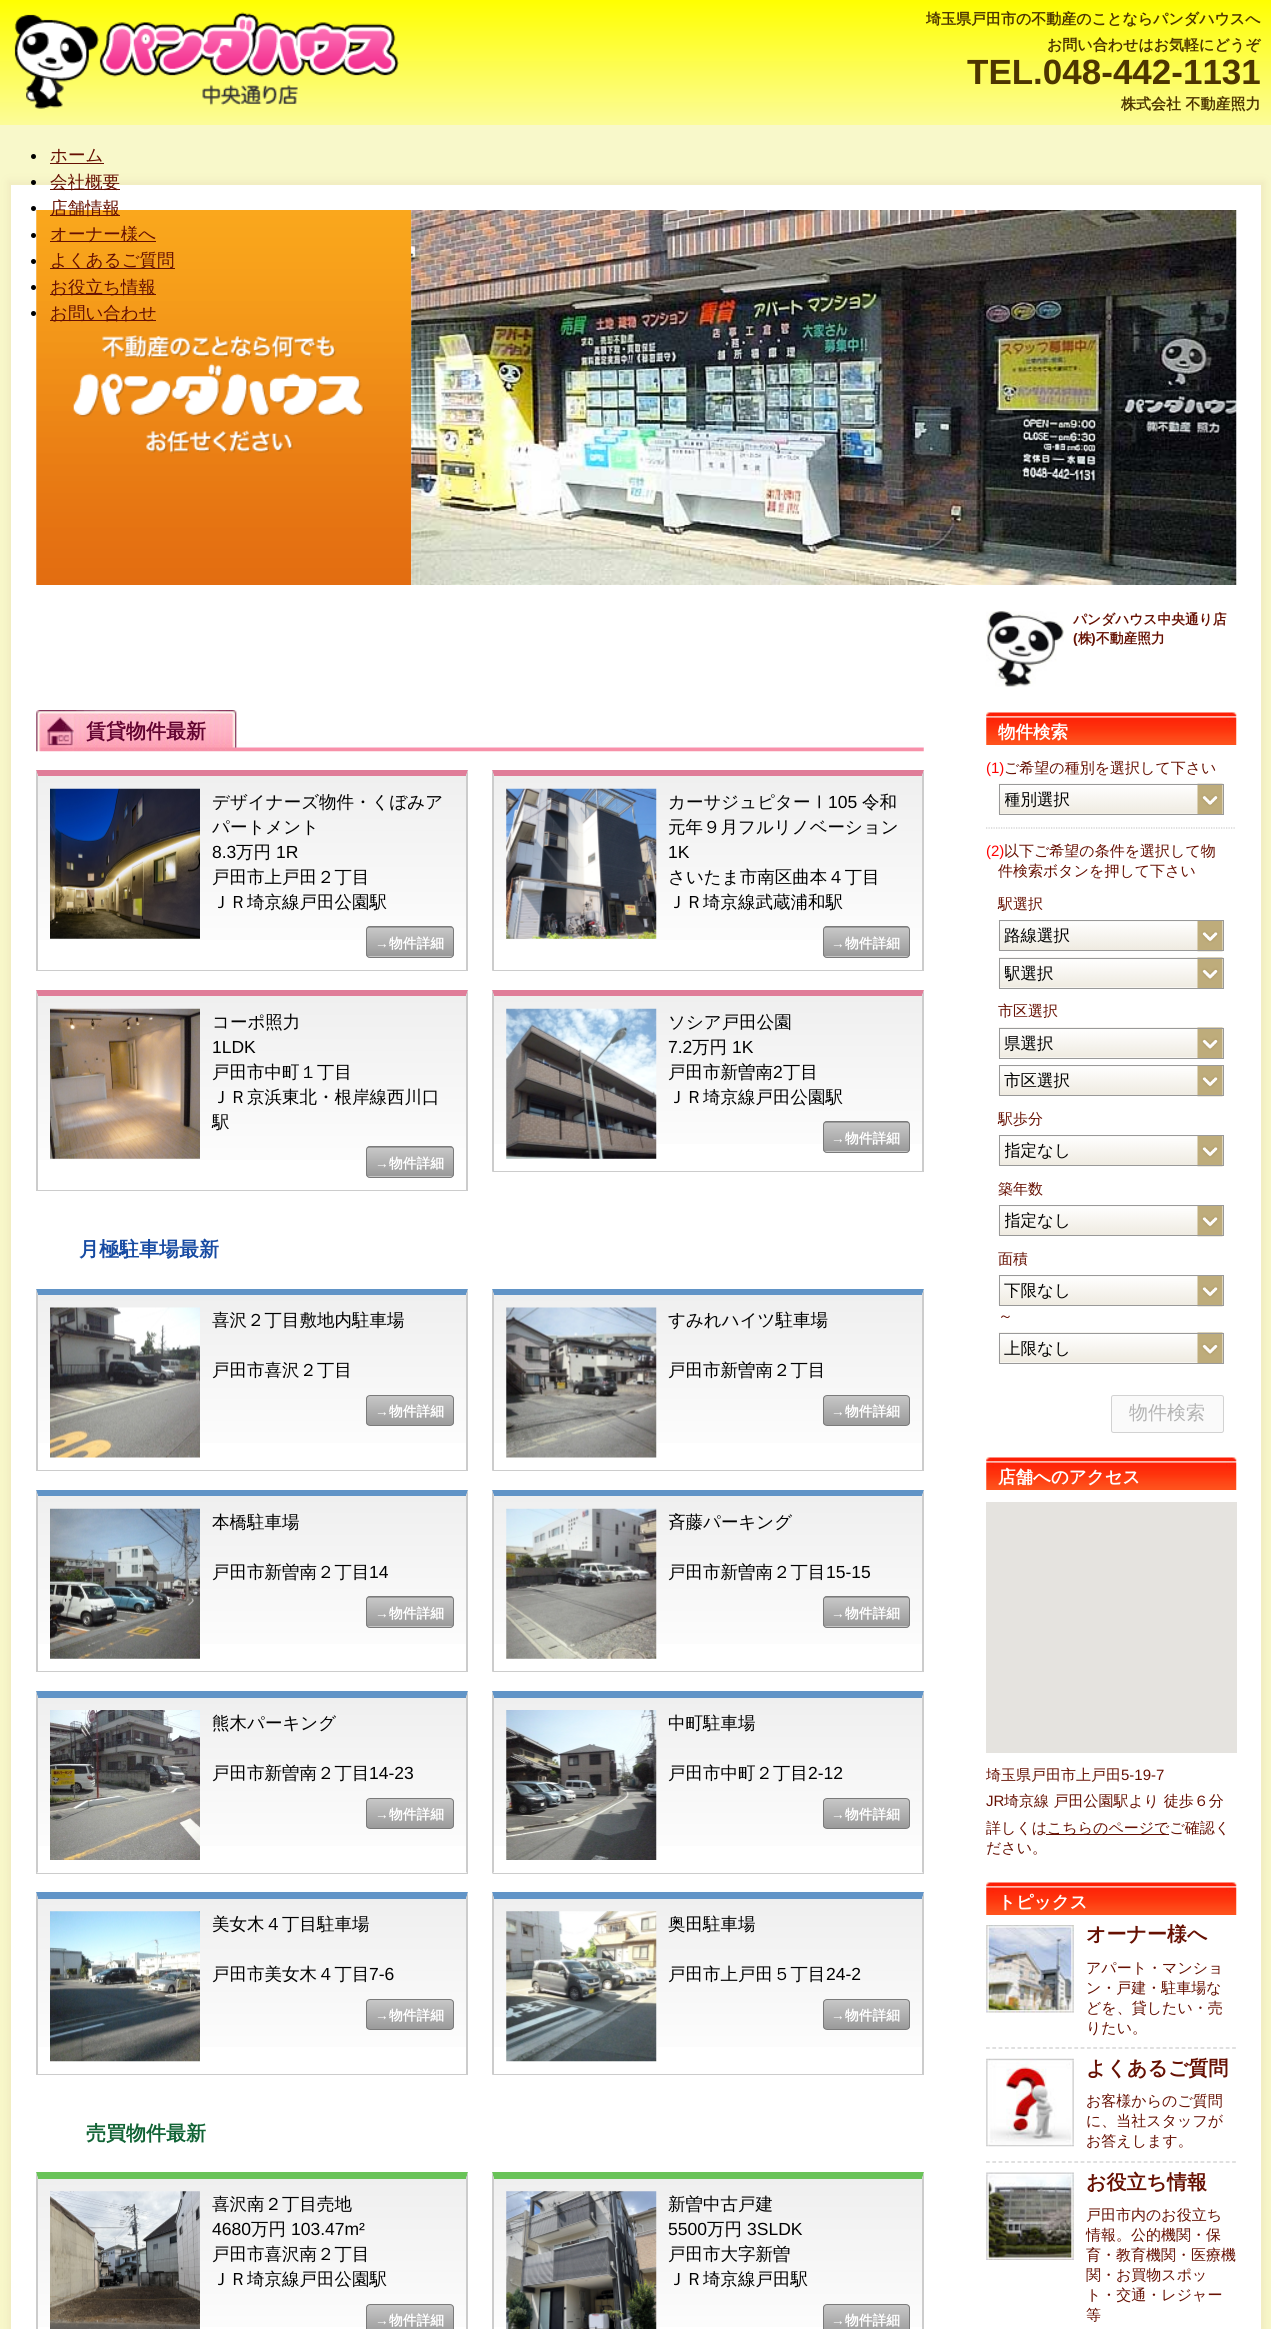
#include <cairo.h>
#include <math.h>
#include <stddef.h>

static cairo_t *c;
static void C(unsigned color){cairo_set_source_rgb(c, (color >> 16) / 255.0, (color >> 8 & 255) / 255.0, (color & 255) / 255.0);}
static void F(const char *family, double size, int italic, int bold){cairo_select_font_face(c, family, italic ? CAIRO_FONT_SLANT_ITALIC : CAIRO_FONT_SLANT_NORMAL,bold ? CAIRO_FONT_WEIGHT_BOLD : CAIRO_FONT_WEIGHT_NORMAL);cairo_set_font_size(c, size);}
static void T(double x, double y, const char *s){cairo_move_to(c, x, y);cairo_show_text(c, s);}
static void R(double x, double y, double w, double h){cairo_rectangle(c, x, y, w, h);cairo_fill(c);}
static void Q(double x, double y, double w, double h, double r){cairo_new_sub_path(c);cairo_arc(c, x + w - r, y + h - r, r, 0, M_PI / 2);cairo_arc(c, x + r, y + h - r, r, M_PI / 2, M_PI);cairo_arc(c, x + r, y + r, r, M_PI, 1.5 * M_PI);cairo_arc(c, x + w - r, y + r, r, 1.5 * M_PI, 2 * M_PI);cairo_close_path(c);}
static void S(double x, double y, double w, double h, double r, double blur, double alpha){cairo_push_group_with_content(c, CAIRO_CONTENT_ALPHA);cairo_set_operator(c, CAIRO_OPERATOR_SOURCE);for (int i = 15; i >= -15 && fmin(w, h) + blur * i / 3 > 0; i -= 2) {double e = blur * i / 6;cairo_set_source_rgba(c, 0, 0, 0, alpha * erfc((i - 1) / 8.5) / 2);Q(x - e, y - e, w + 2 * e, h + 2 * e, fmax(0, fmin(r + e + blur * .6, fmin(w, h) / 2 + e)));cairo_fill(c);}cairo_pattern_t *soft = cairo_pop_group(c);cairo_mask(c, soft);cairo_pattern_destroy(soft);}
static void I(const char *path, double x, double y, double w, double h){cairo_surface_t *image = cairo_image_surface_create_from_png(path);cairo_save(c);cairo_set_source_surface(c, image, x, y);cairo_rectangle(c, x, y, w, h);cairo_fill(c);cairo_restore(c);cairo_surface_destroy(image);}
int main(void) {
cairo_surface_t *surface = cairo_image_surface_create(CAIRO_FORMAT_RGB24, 1271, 2329);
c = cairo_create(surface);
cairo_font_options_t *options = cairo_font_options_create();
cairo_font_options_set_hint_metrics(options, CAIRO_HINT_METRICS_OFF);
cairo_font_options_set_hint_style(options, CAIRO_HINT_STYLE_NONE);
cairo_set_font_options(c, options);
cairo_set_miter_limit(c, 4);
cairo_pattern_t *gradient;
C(0xf8f8ca);
cairo_paint(c);
gradient = cairo_pattern_create_linear(636,0,636,125);
cairo_pattern_add_color_stop_rgba(gradient,0,1,1,0,1);
cairo_pattern_add_color_stop_rgba(gradient,1,0.988,0.988,0.6,1);
cairo_set_source(c,gradient);
cairo_pattern_destroy(gradient);
R(0,0,1271,125);
I("1.png",14,12,385,97);
F("WenQuanYi Zen Hei",15,0,1);
C(0x4d3500);
T(926,24,"埼玉県戸田市の不動産のことならパンダハウスへ");
T(1047,50,"お問い合わせはお気軽にどうぞ");
F("Liberation Sans",35,0,1);
T(967,84,"TEL.048-442-1131");
F("WenQuanYi Zen Hei",15,0,1);
T(1121,109,"株式会社 不動産照力");
C(0x000000);
cairo_new_path(c);
cairo_arc(c,33.5,156.5,2.5,0,2 * M_PI);
cairo_fill(c);
F("WenQuanYi Zen Hei Medium",17.5,0,0);
C(0x661002);
T(50,161,"ホーム");
R(50,163,54,1);
C(0xf0ebc0);
S(8,181,1257,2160,0,4,1);
C(0x000000);
cairo_arc(c,33.5,182.5,2.5,0,2 * M_PI);
cairo_fill(c);
C(0xffffff);
R(11,185,1250,2144);
C(0x661002);
R(50,189,70,1);
T(50,188,"会社概要");
C(0x000000);
cairo_new_path(c);
cairo_arc(c,33.5,208.5,2.5,0,2 * M_PI);
cairo_fill(c);
I("2.png",36,210,376,375);
C(0x661002);
R(50,215,70,1);
T(50,214,"店舗情報");
C(0x000000);
cairo_new_path(c);
cairo_arc(c,33.5,235.5,2.5,0,2 * M_PI);
cairo_fill(c);
C(0x661002);
R(50,241,106,1);
T(50,240,"オーナー様へ");
C(0x000000);
cairo_new_path(c);
cairo_arc(c,33.5,261.5,2.5,0,2 * M_PI);
cairo_fill(c);
C(0x661002);
R(50,268,125,1);
T(50,266,"よくあるご質問");
C(0x000000);
cairo_new_path(c);
cairo_arc(c,33.5,287.5,2.5,0,2 * M_PI);
cairo_fill(c);
C(0x661002);
R(50,294,106,1);
T(50,293,"お役立ち情報");
C(0x000000);
cairo_new_path(c);
cairo_arc(c,33.5,313.5,2.5,0,2 * M_PI);
cairo_fill(c);
C(0x661002);
R(50,320,106,1);
T(50,319,"お問い合わせ");
I("3.png",411,210,826,375);
I("4.png",36,710,888,42);
F("WenQuanYi Zen Hei",20,0,1);
C(0x640531);
T(86,738,"賃貸物件最新");
gradient = cairo_pattern_create_linear(252,776,252,970);
cairo_pattern_add_color_stop_rgba(gradient,0,0.937,0.937,0.937,1);
cairo_pattern_add_color_stop_rgba(gradient,1,1,1,1,1);
cairo_set_source(c,gradient);
cairo_pattern_destroy(gradient);
R(38,776,428,164);
C(0xe07d99);
cairo_new_path(c);
cairo_move_to(c,36,770);
cairo_line_to(c,468,770);
cairo_line_to(c,466,776);
cairo_line_to(c,38,776);
cairo_close_path(c);
cairo_fill(c);
C(0xcccccc);
cairo_new_path(c);
cairo_move_to(c,468,770);
cairo_line_to(c,468,971);
cairo_line_to(c,466,970);
cairo_line_to(c,466,776);
cairo_close_path(c);
cairo_fill(c);
R(36,970,432,1);
cairo_new_path(c);
cairo_move_to(c,36,971);
cairo_line_to(c,36,770);
cairo_line_to(c,38,776);
cairo_line_to(c,38,970);
cairo_close_path(c);
cairo_fill(c);
I("5.png",50,788,150,151);
F("WenQuanYi Zen Hei Medium",17.5,0,0);
C(0x000000);
T(212,808,"デザイナーズ物件・くぼみア");
T(212,833,"パートメント");
F("Liberation Sans",17.5,0,0);
T(212,858,"8.3");
F("WenQuanYi Zen Hei Medium",17.5,0,0);
T(236,858,"万円");
F("Liberation Sans",17.5,0,0);
T(276,858,"1R");
F("WenQuanYi Zen Hei Medium",17.5,0,0);
T(212,883,"戸田市上戸田２丁目");
T(212,908,"ＪＲ埼京線戸田公園駅");
cairo_save(c);
Q(366,926,88,32,4);
cairo_clip(c);
gradient = cairo_pattern_create_linear(410,899,410,928);
cairo_pattern_add_color_stop_rgba(gradient,0,0.78,0.78,0.78,1);
cairo_pattern_add_color_stop_rgba(gradient,1,0.604,0.604,0.604,1);
cairo_set_source(c,gradient);
cairo_pattern_destroy(gradient);
R(366,926,88,2);
gradient = cairo_pattern_create_linear(410,928,410,956);
cairo_pattern_add_color_stop_rgba(gradient,0,0.78,0.78,0.78,1);
cairo_pattern_add_color_stop_rgba(gradient,1,0.604,0.604,0.604,1);
cairo_set_source(c,gradient);
cairo_pattern_destroy(gradient);
R(366,928,88,28);
gradient = cairo_pattern_create_linear(410,956,410,985);
cairo_pattern_add_color_stop_rgba(gradient,0,0.78,0.78,0.78,1);
cairo_pattern_add_color_stop_rgba(gradient,1,0.604,0.604,0.604,1);
cairo_set_source(c,gradient);
cairo_pattern_destroy(gradient);
R(366,956,88,2);
cairo_restore(c);
Q(366.5,926.5,87,31,3.5);
C(0x7a7a7a);
cairo_set_line_width(c,1);
cairo_stroke(c);
F("Liberation Sans",13.75,0,1);
C(0xffffff);
T(375,948,"→");
F("WenQuanYi Zen Hei",13.75,0,1);
T(389,948,"物件詳細");
gradient = cairo_pattern_create_linear(708,776,708,970);
cairo_pattern_add_color_stop_rgba(gradient,0,0.937,0.937,0.937,1);
cairo_pattern_add_color_stop_rgba(gradient,1,1,1,1,1);
cairo_set_source(c,gradient);
cairo_pattern_destroy(gradient);
R(494,776,428,164);
C(0xe07d99);
cairo_new_path(c);
cairo_move_to(c,492,770);
cairo_line_to(c,924,770);
cairo_line_to(c,922,776);
cairo_line_to(c,494,776);
cairo_close_path(c);
cairo_fill(c);
C(0xcccccc);
cairo_new_path(c);
cairo_move_to(c,924,770);
cairo_line_to(c,924,971);
cairo_line_to(c,922,970);
cairo_line_to(c,922,776);
cairo_close_path(c);
cairo_fill(c);
R(493,970,431,1);
cairo_new_path(c);
cairo_move_to(c,492,971);
cairo_line_to(c,492,770);
cairo_line_to(c,494,776);
cairo_line_to(c,494,970);
cairo_close_path(c);
cairo_fill(c);
I("6.png",506,788,151,151);
F("WenQuanYi Zen Hei Medium",17.5,0,0);
C(0x000000);
T(668,808,"カーサジュピターⅠ");
F("Liberation Sans",17.5,0,0);
T(828,808,"105");
F("WenQuanYi Zen Hei Medium",17.5,0,0);
T(862,808,"令和");
T(668,833,"元年９月フルリノベーション");
F("Liberation Sans",17.5,0,0);
T(668,858,"1K");
F("WenQuanYi Zen Hei Medium",17.5,0,0);
T(668,883,"さいたま市南区曲本４丁目");
T(668,908,"ＪＲ埼京線武蔵浦和駅");
cairo_save(c);
Q(823,926,87,32,4);
cairo_clip(c);
gradient = cairo_pattern_create_linear(866,899,866,928);
cairo_pattern_add_color_stop_rgba(gradient,0,0.78,0.78,0.78,1);
cairo_pattern_add_color_stop_rgba(gradient,1,0.604,0.604,0.604,1);
cairo_set_source(c,gradient);
cairo_pattern_destroy(gradient);
R(823,926,87,2);
gradient = cairo_pattern_create_linear(866,928,866,956);
cairo_pattern_add_color_stop_rgba(gradient,0,0.78,0.78,0.78,1);
cairo_pattern_add_color_stop_rgba(gradient,1,0.604,0.604,0.604,1);
cairo_set_source(c,gradient);
cairo_pattern_destroy(gradient);
R(823,928,87,28);
gradient = cairo_pattern_create_linear(866,956,866,985);
cairo_pattern_add_color_stop_rgba(gradient,0,0.78,0.78,0.78,1);
cairo_pattern_add_color_stop_rgba(gradient,1,0.604,0.604,0.604,1);
cairo_set_source(c,gradient);
cairo_pattern_destroy(gradient);
R(823,956,87,2);
cairo_restore(c);
Q(823.5,926.5,86,31,3.5);
C(0x7a7a7a);
cairo_stroke(c);
F("Liberation Sans",13.75,0,1);
C(0xffffff);
T(831,948,"→");
F("WenQuanYi Zen Hei",13.75,0,1);
T(845,948,"物件詳細");
gradient = cairo_pattern_create_linear(252,996,252,1190);
cairo_pattern_add_color_stop_rgba(gradient,0,0.937,0.937,0.937,1);
cairo_pattern_add_color_stop_rgba(gradient,1,1,1,1,1);
cairo_set_source(c,gradient);
cairo_pattern_destroy(gradient);
R(38,996,428,164);
C(0xe07d99);
cairo_new_path(c);
cairo_move_to(c,36,990);
cairo_line_to(c,468,990);
cairo_line_to(c,466,996);
cairo_line_to(c,38,996);
cairo_close_path(c);
cairo_fill(c);
C(0xcccccc);
cairo_new_path(c);
cairo_move_to(c,468,990);
cairo_line_to(c,468,1191);
cairo_line_to(c,466,1190);
cairo_line_to(c,466,996);
cairo_close_path(c);
cairo_fill(c);
R(36,1190,432,1);
cairo_new_path(c);
cairo_move_to(c,36,1191);
cairo_line_to(c,36,990);
cairo_line_to(c,38,996);
cairo_line_to(c,38,1190);
cairo_close_path(c);
cairo_fill(c);
I("7.png",50,1008,150,151);
F("WenQuanYi Zen Hei Medium",17.5,0,0);
C(0x000000);
T(212,1028,"コーポ照力");
F("Liberation Sans",17.5,0,0);
T(212,1053,"1LDK");
F("WenQuanYi Zen Hei Medium",17.5,0,0);
T(212,1078,"戸田市中町１丁目");
T(212,1103,"ＪＲ京浜東北・根岸線西川口");
T(212,1128,"駅");
cairo_save(c);
Q(366,1146,88,32,4);
cairo_clip(c);
gradient = cairo_pattern_create_linear(410,1119,410,1148);
cairo_pattern_add_color_stop_rgba(gradient,0,0.78,0.78,0.78,1);
cairo_pattern_add_color_stop_rgba(gradient,1,0.604,0.604,0.604,1);
cairo_set_source(c,gradient);
cairo_pattern_destroy(gradient);
R(366,1146,88,2);
gradient = cairo_pattern_create_linear(410,1148,410,1176);
cairo_pattern_add_color_stop_rgba(gradient,0,0.78,0.78,0.78,1);
cairo_pattern_add_color_stop_rgba(gradient,1,0.604,0.604,0.604,1);
cairo_set_source(c,gradient);
cairo_pattern_destroy(gradient);
R(366,1148,88,28);
gradient = cairo_pattern_create_linear(410,1176,410,1205);
cairo_pattern_add_color_stop_rgba(gradient,0,0.78,0.78,0.78,1);
cairo_pattern_add_color_stop_rgba(gradient,1,0.604,0.604,0.604,1);
cairo_set_source(c,gradient);
cairo_pattern_destroy(gradient);
R(366,1176,88,2);
cairo_restore(c);
Q(366.5,1146.5,87,31,3.5);
C(0x7a7a7a);
cairo_stroke(c);
F("Liberation Sans",13.75,0,1);
C(0xffffff);
T(375,1168,"→");
F("WenQuanYi Zen Hei",13.75,0,1);
T(389,1168,"物件詳細");
gradient = cairo_pattern_create_linear(708,996,708,1171);
cairo_pattern_add_color_stop_rgba(gradient,0,0.937,0.937,0.937,1);
cairo_pattern_add_color_stop_rgba(gradient,1,1,1,1,1);
cairo_set_source(c,gradient);
cairo_pattern_destroy(gradient);
R(494,996,428,148);
C(0xe07d99);
cairo_new_path(c);
cairo_move_to(c,492,990);
cairo_line_to(c,924,990);
cairo_line_to(c,922,996);
cairo_line_to(c,494,996);
cairo_close_path(c);
cairo_fill(c);
C(0xcccccc);
cairo_new_path(c);
cairo_move_to(c,924,990);
cairo_line_to(c,924,1172);
cairo_line_to(c,922,1171);
cairo_line_to(c,922,996);
cairo_close_path(c);
cairo_fill(c);
R(493,1171,431,1);
cairo_new_path(c);
cairo_move_to(c,492,1172);
cairo_line_to(c,492,990);
cairo_line_to(c,494,996);
cairo_line_to(c,494,1171);
cairo_close_path(c);
cairo_fill(c);
I("8.png",506,1008,151,151);
F("WenQuanYi Zen Hei Medium",17.5,0,0);
C(0x000000);
T(668,1028,"ソシア戸田公園");
F("Liberation Sans",17.5,0,0);
T(668,1053,"7.2");
F("WenQuanYi Zen Hei Medium",17.5,0,0);
T(692,1053,"万円");
F("Liberation Sans",17.5,0,0);
T(732,1053,"1K");
F("WenQuanYi Zen Hei Medium",17.5,0,0);
T(668,1078,"戸田市新曽南");
F("Liberation Sans",17.5,0,0);
T(773,1078,"2");
F("WenQuanYi Zen Hei Medium",17.5,0,0);
T(783,1078,"丁目");
T(668,1103,"ＪＲ埼京線戸田公園駅");
cairo_save(c);
Q(823,1121,87,32,4);
cairo_clip(c);
gradient = cairo_pattern_create_linear(866,1094,866,1123);
cairo_pattern_add_color_stop_rgba(gradient,0,0.78,0.78,0.78,1);
cairo_pattern_add_color_stop_rgba(gradient,1,0.604,0.604,0.604,1);
cairo_set_source(c,gradient);
cairo_pattern_destroy(gradient);
R(823,1121,87,2);
gradient = cairo_pattern_create_linear(866,1123,866,1151);
cairo_pattern_add_color_stop_rgba(gradient,0,0.78,0.78,0.78,1);
cairo_pattern_add_color_stop_rgba(gradient,1,0.604,0.604,0.604,1);
cairo_set_source(c,gradient);
cairo_pattern_destroy(gradient);
R(823,1123,87,28);
gradient = cairo_pattern_create_linear(866,1151,866,1180);
cairo_pattern_add_color_stop_rgba(gradient,0,0.78,0.78,0.78,1);
cairo_pattern_add_color_stop_rgba(gradient,1,0.604,0.604,0.604,1);
cairo_set_source(c,gradient);
cairo_pattern_destroy(gradient);
R(823,1151,87,2);
cairo_restore(c);
Q(823.5,1121.5,86,31,3.5);
C(0x7a7a7a);
cairo_stroke(c);
F("Liberation Sans",13.75,0,1);
C(0xffffff);
T(831,1143,"→");
F("WenQuanYi Zen Hei",13.75,0,1);
T(845,1143,"物件詳細");
F("WenQuanYi Zen Hei",20,0,1);
C(0x174ba2);
T(79,1256,"月極駐車場最新");
gradient = cairo_pattern_create_linear(252,1295,252,1470);
cairo_pattern_add_color_stop_rgba(gradient,0,0.937,0.937,0.937,1);
cairo_pattern_add_color_stop_rgba(gradient,1,1,1,1,1);
cairo_set_source(c,gradient);
cairo_pattern_destroy(gradient);
R(38,1295,428,148);
C(0x6194c7);
cairo_new_path(c);
cairo_move_to(c,36,1289);
cairo_line_to(c,468,1289);
cairo_line_to(c,466,1295);
cairo_line_to(c,38,1295);
cairo_close_path(c);
cairo_fill(c);
C(0xcccccc);
cairo_new_path(c);
cairo_move_to(c,468,1289);
cairo_line_to(c,468,1471);
cairo_line_to(c,466,1470);
cairo_line_to(c,466,1295);
cairo_close_path(c);
cairo_fill(c);
R(36,1470,432,1);
cairo_new_path(c);
cairo_move_to(c,36,1471);
cairo_line_to(c,36,1289);
cairo_line_to(c,38,1295);
cairo_line_to(c,38,1470);
cairo_close_path(c);
cairo_fill(c);
I("9.png",50,1307,150,151);
F("WenQuanYi Zen Hei Medium",17.5,0,0);
C(0x000000);
T(212,1326,"喜沢２丁目敷地内駐車場");
T(212,1376,"戸田市喜沢２丁目");
cairo_save(c);
Q(366,1395,88,31,4);
cairo_clip(c);
gradient = cairo_pattern_create_linear(410,1396,410,1425);
cairo_pattern_add_color_stop_rgba(gradient,0,0.78,0.78,0.78,1);
cairo_pattern_add_color_stop_rgba(gradient,1,0.604,0.604,0.604,1);
cairo_set_source(c,gradient);
cairo_pattern_destroy(gradient);
R(366,1396,88,29);
cairo_restore(c);
Q(366.5,1395.5,87,30,3.5);
C(0x7a7a7a);
cairo_stroke(c);
F("Liberation Sans",13.75,0,1);
C(0xffffff);
T(375,1416,"→");
F("WenQuanYi Zen Hei",13.75,0,1);
T(389,1416,"物件詳細");
gradient = cairo_pattern_create_linear(708,1295,708,1470);
cairo_pattern_add_color_stop_rgba(gradient,0,0.937,0.937,0.937,1);
cairo_pattern_add_color_stop_rgba(gradient,1,1,1,1,1);
cairo_set_source(c,gradient);
cairo_pattern_destroy(gradient);
R(494,1295,428,148);
C(0x6194c7);
cairo_new_path(c);
cairo_move_to(c,492,1289);
cairo_line_to(c,924,1289);
cairo_line_to(c,922,1295);
cairo_line_to(c,494,1295);
cairo_close_path(c);
cairo_fill(c);
C(0xcccccc);
cairo_new_path(c);
cairo_move_to(c,924,1289);
cairo_line_to(c,924,1471);
cairo_line_to(c,922,1470);
cairo_line_to(c,922,1295);
cairo_close_path(c);
cairo_fill(c);
R(493,1470,431,1);
cairo_new_path(c);
cairo_move_to(c,492,1471);
cairo_line_to(c,492,1289);
cairo_line_to(c,494,1295);
cairo_line_to(c,494,1470);
cairo_close_path(c);
cairo_fill(c);
I("10.png",506,1307,151,151);
F("WenQuanYi Zen Hei Medium",17.5,0,0);
C(0x000000);
T(668,1326,"すみれハイツ駐車場");
T(668,1376,"戸田市新曽南２丁目");
cairo_save(c);
Q(823,1395,87,31,4);
cairo_clip(c);
gradient = cairo_pattern_create_linear(866,1396,866,1425);
cairo_pattern_add_color_stop_rgba(gradient,0,0.78,0.78,0.78,1);
cairo_pattern_add_color_stop_rgba(gradient,1,0.604,0.604,0.604,1);
cairo_set_source(c,gradient);
cairo_pattern_destroy(gradient);
R(823,1396,87,29);
cairo_restore(c);
Q(823.5,1395.5,86,30,3.5);
C(0x7a7a7a);
cairo_stroke(c);
F("Liberation Sans",13.75,0,1);
C(0xffffff);
T(831,1416,"→");
F("WenQuanYi Zen Hei",13.75,0,1);
T(845,1416,"物件詳細");
gradient = cairo_pattern_create_linear(252,1496,252,1671);
cairo_pattern_add_color_stop_rgba(gradient,0,0.937,0.937,0.937,1);
cairo_pattern_add_color_stop_rgba(gradient,1,1,1,1,1);
cairo_set_source(c,gradient);
cairo_pattern_destroy(gradient);
R(38,1496,428,148);
C(0x6194c7);
cairo_new_path(c);
cairo_move_to(c,36,1490);
cairo_line_to(c,468,1490);
cairo_line_to(c,466,1496);
cairo_line_to(c,38,1496);
cairo_close_path(c);
cairo_fill(c);
C(0xcccccc);
cairo_new_path(c);
cairo_move_to(c,468,1490);
cairo_line_to(c,468,1672);
cairo_line_to(c,466,1671);
cairo_line_to(c,466,1496);
cairo_close_path(c);
cairo_fill(c);
R(36,1671,432,1);
cairo_new_path(c);
cairo_move_to(c,36,1672);
cairo_line_to(c,36,1490);
cairo_line_to(c,38,1496);
cairo_line_to(c,38,1671);
cairo_close_path(c);
cairo_fill(c);
I("11.png",50,1508,150,151);
F("WenQuanYi Zen Hei Medium",17.5,0,0);
C(0x000000);
T(212,1528,"本橋駐車場");
T(212,1578,"戸田市新曽南２丁目");
F("Liberation Sans",17.5,0,0);
T(369,1578,"14");
cairo_save(c);
Q(366,1596,88,32,4);
cairo_clip(c);
gradient = cairo_pattern_create_linear(410,1569,410,1598);
cairo_pattern_add_color_stop_rgba(gradient,0,0.78,0.78,0.78,1);
cairo_pattern_add_color_stop_rgba(gradient,1,0.604,0.604,0.604,1);
cairo_set_source(c,gradient);
cairo_pattern_destroy(gradient);
R(366,1596,88,2);
gradient = cairo_pattern_create_linear(410,1598,410,1626);
cairo_pattern_add_color_stop_rgba(gradient,0,0.78,0.78,0.78,1);
cairo_pattern_add_color_stop_rgba(gradient,1,0.604,0.604,0.604,1);
cairo_set_source(c,gradient);
cairo_pattern_destroy(gradient);
R(366,1598,88,28);
gradient = cairo_pattern_create_linear(410,1626,410,1655);
cairo_pattern_add_color_stop_rgba(gradient,0,0.78,0.78,0.78,1);
cairo_pattern_add_color_stop_rgba(gradient,1,0.604,0.604,0.604,1);
cairo_set_source(c,gradient);
cairo_pattern_destroy(gradient);
R(366,1626,88,2);
cairo_restore(c);
Q(366.5,1596.5,87,31,3.5);
C(0x7a7a7a);
cairo_stroke(c);
F("Liberation Sans",13.75,0,1);
C(0xffffff);
T(375,1618,"→");
F("WenQuanYi Zen Hei",13.75,0,1);
T(389,1618,"物件詳細");
gradient = cairo_pattern_create_linear(708,1496,708,1671);
cairo_pattern_add_color_stop_rgba(gradient,0,0.937,0.937,0.937,1);
cairo_pattern_add_color_stop_rgba(gradient,1,1,1,1,1);
cairo_set_source(c,gradient);
cairo_pattern_destroy(gradient);
R(494,1496,428,148);
C(0x6194c7);
cairo_new_path(c);
cairo_move_to(c,492,1490);
cairo_line_to(c,924,1490);
cairo_line_to(c,922,1496);
cairo_line_to(c,494,1496);
cairo_close_path(c);
cairo_fill(c);
C(0xcccccc);
cairo_new_path(c);
cairo_move_to(c,924,1490);
cairo_line_to(c,924,1672);
cairo_line_to(c,922,1671);
cairo_line_to(c,922,1496);
cairo_close_path(c);
cairo_fill(c);
R(493,1671,431,1);
cairo_new_path(c);
cairo_move_to(c,492,1672);
cairo_line_to(c,492,1490);
cairo_line_to(c,494,1496);
cairo_line_to(c,494,1671);
cairo_close_path(c);
cairo_fill(c);
I("12.png",506,1508,151,151);
F("WenQuanYi Zen Hei Medium",17.5,0,0);
C(0x000000);
T(668,1528,"斉藤パーキング");
T(668,1578,"戸田市新曽南２丁目");
F("Liberation Sans",17.5,0,0);
T(826,1578,"15-15");
cairo_save(c);
Q(823,1596,87,32,4);
cairo_clip(c);
gradient = cairo_pattern_create_linear(866,1569,866,1598);
cairo_pattern_add_color_stop_rgba(gradient,0,0.78,0.78,0.78,1);
cairo_pattern_add_color_stop_rgba(gradient,1,0.604,0.604,0.604,1);
cairo_set_source(c,gradient);
cairo_pattern_destroy(gradient);
R(823,1596,87,2);
gradient = cairo_pattern_create_linear(866,1598,866,1626);
cairo_pattern_add_color_stop_rgba(gradient,0,0.78,0.78,0.78,1);
cairo_pattern_add_color_stop_rgba(gradient,1,0.604,0.604,0.604,1);
cairo_set_source(c,gradient);
cairo_pattern_destroy(gradient);
R(823,1598,87,28);
gradient = cairo_pattern_create_linear(866,1626,866,1655);
cairo_pattern_add_color_stop_rgba(gradient,0,0.78,0.78,0.78,1);
cairo_pattern_add_color_stop_rgba(gradient,1,0.604,0.604,0.604,1);
cairo_set_source(c,gradient);
cairo_pattern_destroy(gradient);
R(823,1626,87,2);
cairo_restore(c);
Q(823.5,1596.5,86,31,3.5);
C(0x7a7a7a);
cairo_stroke(c);
F("Liberation Sans",13.75,0,1);
C(0xffffff);
T(831,1618,"→");
F("WenQuanYi Zen Hei",13.75,0,1);
T(845,1618,"物件詳細");
gradient = cairo_pattern_create_linear(252,1698,252,1873);
cairo_pattern_add_color_stop_rgba(gradient,0,0.937,0.937,0.937,1);
cairo_pattern_add_color_stop_rgba(gradient,1,1,1,1,1);
cairo_set_source(c,gradient);
cairo_pattern_destroy(gradient);
R(38,1698,428,148);
C(0x6194c7);
cairo_new_path(c);
cairo_move_to(c,36,1691);
cairo_line_to(c,468,1691);
cairo_line_to(c,466,1698);
cairo_line_to(c,38,1698);
cairo_close_path(c);
cairo_fill(c);
C(0xcccccc);
cairo_new_path(c);
cairo_move_to(c,468,1691);
cairo_line_to(c,468,1874);
cairo_line_to(c,466,1872);
cairo_line_to(c,466,1698);
cairo_close_path(c);
cairo_fill(c);
R(36,1873,432,1);
cairo_new_path(c);
cairo_move_to(c,36,1874);
cairo_line_to(c,36,1691);
cairo_line_to(c,38,1698);
cairo_line_to(c,38,1872);
cairo_close_path(c);
cairo_fill(c);
I("13.png",50,1710,150,150);
F("WenQuanYi Zen Hei Medium",17.5,0,0);
C(0x000000);
T(212,1729,"熊木パーキング");
T(212,1779,"戸田市新曽南２丁目");
F("Liberation Sans",17.5,0,0);
T(369,1779,"14-23");
cairo_save(c);
Q(366,1798,88,31,4);
cairo_clip(c);
gradient = cairo_pattern_create_linear(410,1799,410,1828);
cairo_pattern_add_color_stop_rgba(gradient,0,0.78,0.78,0.78,1);
cairo_pattern_add_color_stop_rgba(gradient,1,0.604,0.604,0.604,1);
cairo_set_source(c,gradient);
cairo_pattern_destroy(gradient);
R(366,1799,88,29);
cairo_restore(c);
Q(366.5,1798.5,87,30,3.5);
C(0x7a7a7a);
cairo_stroke(c);
F("Liberation Sans",13.75,0,1);
C(0xffffff);
T(375,1819,"→");
F("WenQuanYi Zen Hei",13.75,0,1);
T(389,1819,"物件詳細");
gradient = cairo_pattern_create_linear(708,1698,708,1873);
cairo_pattern_add_color_stop_rgba(gradient,0,0.937,0.937,0.937,1);
cairo_pattern_add_color_stop_rgba(gradient,1,1,1,1,1);
cairo_set_source(c,gradient);
cairo_pattern_destroy(gradient);
R(494,1698,429,148);
C(0x6194c7);
cairo_new_path(c);
cairo_move_to(c,492,1691);
cairo_line_to(c,924,1691);
cairo_line_to(c,922,1698);
cairo_line_to(c,494,1698);
cairo_close_path(c);
cairo_fill(c);
C(0xcccccc);
cairo_new_path(c);
cairo_move_to(c,924,1691);
cairo_line_to(c,924,1874);
cairo_line_to(c,922,1872);
cairo_line_to(c,922,1698);
cairo_close_path(c);
cairo_fill(c);
R(493,1873,431,1);
cairo_new_path(c);
cairo_move_to(c,492,1874);
cairo_line_to(c,492,1691);
cairo_line_to(c,494,1698);
cairo_line_to(c,494,1872);
cairo_close_path(c);
cairo_fill(c);
I("14.png",506,1710,151,150);
F("WenQuanYi Zen Hei Medium",17.5,0,0);
C(0x000000);
T(668,1729,"中町駐車場");
T(668,1779,"戸田市中町２丁目");
F("Liberation Sans",17.5,0,0);
T(808,1779,"2-12");
cairo_save(c);
Q(823,1798,87,31,4);
cairo_clip(c);
gradient = cairo_pattern_create_linear(866,1799,866,1828);
cairo_pattern_add_color_stop_rgba(gradient,0,0.78,0.78,0.78,1);
cairo_pattern_add_color_stop_rgba(gradient,1,0.604,0.604,0.604,1);
cairo_set_source(c,gradient);
cairo_pattern_destroy(gradient);
R(823,1799,87,29);
cairo_restore(c);
Q(823.5,1798.5,86,30,3.5);
C(0x7a7a7a);
cairo_stroke(c);
F("Liberation Sans",13.75,0,1);
C(0xffffff);
T(831,1819,"→");
F("WenQuanYi Zen Hei",13.75,0,1);
T(845,1819,"物件詳細");
gradient = cairo_pattern_create_linear(252,1899,252,2074);
cairo_pattern_add_color_stop_rgba(gradient,0,0.937,0.937,0.937,1);
cairo_pattern_add_color_stop_rgba(gradient,1,1,1,1,1);
cairo_set_source(c,gradient);
cairo_pattern_destroy(gradient);
R(38,1899,428,148);
C(0x6194c7);
cairo_new_path(c);
cairo_move_to(c,36,1892);
cairo_line_to(c,468,1892);
cairo_line_to(c,466,1899);
cairo_line_to(c,38,1899);
cairo_close_path(c);
cairo_fill(c);
C(0xcccccc);
cairo_new_path(c);
cairo_move_to(c,468,1892);
cairo_line_to(c,468,2075);
cairo_line_to(c,466,2074);
cairo_line_to(c,466,1899);
cairo_close_path(c);
cairo_fill(c);
R(36,2074,432,1);
cairo_new_path(c);
cairo_move_to(c,36,2075);
cairo_line_to(c,36,1892);
cairo_line_to(c,38,1899);
cairo_line_to(c,38,2074);
cairo_close_path(c);
cairo_fill(c);
I("15.png",50,1911,150,151);
F("WenQuanYi Zen Hei Medium",17.5,0,0);
C(0x000000);
T(212,1930,"美女木４丁目駐車場");
T(212,1980,"戸田市美女木４丁目");
F("Liberation Sans",17.5,0,0);
T(369,1980,"7-6");
cairo_save(c);
Q(366,1999,88,31,4);
cairo_clip(c);
gradient = cairo_pattern_create_linear(410,2000,410,2029);
cairo_pattern_add_color_stop_rgba(gradient,0,0.78,0.78,0.78,1);
cairo_pattern_add_color_stop_rgba(gradient,1,0.604,0.604,0.604,1);
cairo_set_source(c,gradient);
cairo_pattern_destroy(gradient);
R(366,2000,88,29);
cairo_restore(c);
Q(366.5,1999.5,87,30,3.5);
C(0x7a7a7a);
cairo_stroke(c);
F("Liberation Sans",13.75,0,1);
C(0xffffff);
T(375,2020,"→");
F("WenQuanYi Zen Hei",13.75,0,1);
T(389,2020,"物件詳細");
gradient = cairo_pattern_create_linear(708,1899,708,2074);
cairo_pattern_add_color_stop_rgba(gradient,0,0.937,0.937,0.937,1);
cairo_pattern_add_color_stop_rgba(gradient,1,1,1,1,1);
cairo_set_source(c,gradient);
cairo_pattern_destroy(gradient);
R(494,1899,428,148);
C(0x6194c7);
cairo_new_path(c);
cairo_move_to(c,492,1892);
cairo_line_to(c,924,1892);
cairo_line_to(c,922,1899);
cairo_line_to(c,494,1899);
cairo_close_path(c);
cairo_fill(c);
C(0xcccccc);
cairo_new_path(c);
cairo_move_to(c,924,1892);
cairo_line_to(c,924,2075);
cairo_line_to(c,922,2074);
cairo_line_to(c,922,1899);
cairo_close_path(c);
cairo_fill(c);
R(493,2074,431,1);
cairo_new_path(c);
cairo_move_to(c,492,2075);
cairo_line_to(c,492,1892);
cairo_line_to(c,494,1899);
cairo_line_to(c,494,2074);
cairo_close_path(c);
cairo_fill(c);
I("16.png",506,1911,151,151);
F("WenQuanYi Zen Hei Medium",17.5,0,0);
C(0x000000);
T(668,1930,"奥田駐車場");
T(668,1980,"戸田市上戸田５丁目");
F("Liberation Sans",17.5,0,0);
T(826,1980,"24-2");
cairo_save(c);
Q(823,1999,87,31,4);
cairo_clip(c);
gradient = cairo_pattern_create_linear(866,2000,866,2029);
cairo_pattern_add_color_stop_rgba(gradient,0,0.78,0.78,0.78,1);
cairo_pattern_add_color_stop_rgba(gradient,1,0.604,0.604,0.604,1);
cairo_set_source(c,gradient);
cairo_pattern_destroy(gradient);
R(823,2000,87,29);
cairo_restore(c);
Q(823.5,1999.5,86,30,3.5);
C(0x7a7a7a);
cairo_stroke(c);
F("Liberation Sans",13.75,0,1);
C(0xffffff);
T(831,2020,"→");
F("WenQuanYi Zen Hei",13.75,0,1);
T(845,2020,"物件詳細");
F("WenQuanYi Zen Hei",20,0,1);
C(0x126436);
T(86,2140,"売買物件最新");
gradient = cairo_pattern_create_linear(252,2179,252,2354);
cairo_pattern_add_color_stop_rgba(gradient,0,0.937,0.937,0.937,1);
cairo_pattern_add_color_stop_rgba(gradient,1,1,1,1,1);
cairo_set_source(c,gradient);
cairo_pattern_destroy(gradient);
R(38,2179,428,148);
C(0x69c358);
cairo_new_path(c);
cairo_move_to(c,36,2172);
cairo_line_to(c,468,2172);
cairo_line_to(c,466,2179);
cairo_line_to(c,38,2179);
cairo_close_path(c);
cairo_fill(c);
C(0xcccccc);
cairo_new_path(c);
cairo_move_to(c,468,2172);
cairo_line_to(c,468,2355);
cairo_line_to(c,466,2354);
cairo_line_to(c,466,2179);
cairo_close_path(c);
cairo_fill(c);
cairo_new_path(c);
cairo_move_to(c,36,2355);
cairo_line_to(c,36,2172);
cairo_line_to(c,38,2179);
cairo_line_to(c,38,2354);
cairo_close_path(c);
cairo_fill(c);
I("17.png",50,2191,150,138);
F("WenQuanYi Zen Hei Medium",17.5,0,0);
C(0x000000);
T(212,2210,"喜沢南２丁目売地");
F("Liberation Sans",17.5,0,0);
T(212,2235,"4680");
F("WenQuanYi Zen Hei Medium",17.5,0,0);
T(251,2235,"万円");
F("Liberation Sans",17.5,0,0);
T(291,2235,"103.47m²");
F("WenQuanYi Zen Hei Medium",17.5,0,0);
T(212,2260,"戸田市喜沢南２丁目");
T(212,2285,"ＪＲ埼京線戸田公園駅");
cairo_save(c);
Q(366,2304,88,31,4);
cairo_clip(c);
gradient = cairo_pattern_create_linear(410,2305,410,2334);
cairo_pattern_add_color_stop_rgba(gradient,0,0.78,0.78,0.78,1);
cairo_pattern_add_color_stop_rgba(gradient,1,0.604,0.604,0.604,1);
cairo_set_source(c,gradient);
cairo_pattern_destroy(gradient);
R(366,2305,88,24);
cairo_restore(c);
Q(366.5,2304.5,87,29,3.5);
C(0x7a7a7a);
cairo_stroke(c);
F("Liberation Sans",13.75,0,1);
C(0xffffff);
T(375,2325,"→");
F("WenQuanYi Zen Hei",13.75,0,1);
T(389,2325,"物件詳細");
gradient = cairo_pattern_create_linear(708,2179,708,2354);
cairo_pattern_add_color_stop_rgba(gradient,0,0.937,0.937,0.937,1);
cairo_pattern_add_color_stop_rgba(gradient,1,1,1,1,1);
cairo_set_source(c,gradient);
cairo_pattern_destroy(gradient);
R(494,2179,428,148);
C(0x69c358);
cairo_new_path(c);
cairo_move_to(c,492,2172);
cairo_line_to(c,924,2172);
cairo_line_to(c,922,2179);
cairo_line_to(c,494,2179);
cairo_close_path(c);
cairo_fill(c);
C(0xcccccc);
cairo_new_path(c);
cairo_move_to(c,924,2172);
cairo_line_to(c,924,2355);
cairo_line_to(c,922,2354);
cairo_line_to(c,922,2179);
cairo_close_path(c);
cairo_fill(c);
cairo_new_path(c);
cairo_move_to(c,492,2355);
cairo_line_to(c,492,2172);
cairo_line_to(c,494,2179);
cairo_line_to(c,494,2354);
cairo_close_path(c);
cairo_fill(c);
I("18.png",506,2191,151,138);
F("WenQuanYi Zen Hei Medium",17.5,0,0);
C(0x000000);
T(668,2210,"新曽中古戸建");
F("Liberation Sans",17.5,0,0);
T(668,2235,"5500");
F("WenQuanYi Zen Hei Medium",17.5,0,0);
T(707,2235,"万円");
F("Liberation Sans",17.5,0,0);
T(747,2235,"3SLDK");
F("WenQuanYi Zen Hei Medium",17.5,0,0);
T(668,2260,"戸田市大字新曽");
T(668,2285,"ＪＲ埼京線戸田駅");
cairo_save(c);
Q(823,2304,87,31,4);
cairo_clip(c);
gradient = cairo_pattern_create_linear(866,2305,866,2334);
cairo_pattern_add_color_stop_rgba(gradient,0,0.78,0.78,0.78,1);
cairo_pattern_add_color_stop_rgba(gradient,1,0.604,0.604,0.604,1);
cairo_set_source(c,gradient);
cairo_pattern_destroy(gradient);
R(823,2305,87,24);
cairo_restore(c);
Q(823.5,2304.5,86,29,3.5);
C(0x7a7a7a);
cairo_stroke(c);
F("Liberation Sans",13.75,0,1);
C(0xffffff);
T(831,2325,"→");
F("WenQuanYi Zen Hei",13.75,0,1);
T(845,2325,"物件詳細");
I("19.png",986,611,78,76);
C(0x661002);
T(1073,624,"パンダハウス中央通り店");
F("Liberation Sans",13.75,0,1);
T(1073,643,"(");
F("WenQuanYi Zen Hei",13.75,0,1);
T(1078,643,"株");
F("Liberation Sans",13.75,0,1);
T(1091,643,")");
F("WenQuanYi Zen Hei",13.75,0,1);
T(1096,643,"不動産照力");
I("20.png",986,712,251,33);
F("WenQuanYi Zen Hei",17.5,0,1);
C(0xffffff);
T(998,738,"物件検索");
F("Liberation Sans",15,0,0);
C(0xff0000);
T(986,773,"(1)");
F("WenQuanYi Zen Hei Medium",15,0,0);
C(0x661002);
T(1004,773,"ご希望の種別を選択して下さい");
cairo_new_path(c);
cairo_move_to(c,986,828);
cairo_line_to(c,1236,828);
C(0xcccccc);
cairo_set_line_width(c,1.2);
cairo_set_dash(c,(double[]){1.25,1.25},2,0);
cairo_stroke(c);
I("21.png",998,783,226,32);
cairo_rectangle(c,999.5,784.5,224,30);
C(0x999999);
cairo_set_line_width(c,1);
cairo_set_dash(c,NULL,0,0);
cairo_stroke(c);
cairo_save(c);
cairo_rectangle(c,1005,790,213,19);
cairo_clip(c);
F("WenQuanYi Zen Hei Medium",16.5,0,0);
C(0x000000);
T(1004,805,"種別選択");
cairo_restore(c);
F("Liberation Sans",15,0,0);
C(0xff0000);
T(986,856,"(2)");
F("WenQuanYi Zen Hei Medium",15,0,0);
C(0x661002);
T(1004,856,"以下ご希望の条件を選択して物");
T(998,876,"件検索ボタンを押して下さい");
T(998,909,"駅選択");
I("22.png",998,920,226,32);
cairo_rectangle(c,999.5,920.5,224,30);
C(0x999999);
cairo_stroke(c);
F("WenQuanYi Zen Hei Medium",16.5,0,0);
C(0x000000);
T(1004,941,"路線選択");
I("23.png",998,957,226,32);
cairo_rectangle(c,999.5,958.5,224,30);
C(0x999999);
cairo_stroke(c);
cairo_save(c);
cairo_rectangle(c,1005,964,213,19);
cairo_clip(c);
C(0x000000);
T(1004,979,"駅選択");
cairo_restore(c);
F("WenQuanYi Zen Hei Medium",15,0,0);
C(0x661002);
T(998,1016,"市区選択");
I("23.png",998,1027,226,32);
cairo_rectangle(c,999.5,1028.5,224,30);
C(0x999999);
cairo_stroke(c);
F("WenQuanYi Zen Hei Medium",16.5,0,0);
C(0x000000);
T(1004,1049,"県選択");
I("22.png",998,1065,226,32);
cairo_rectangle(c,999.5,1065.5,224,30);
C(0x999999);
cairo_stroke(c);
C(0x000000);
T(1004,1086,"市区選択");
F("WenQuanYi Zen Hei Medium",15,0,0);
C(0x661002);
T(998,1124,"駅歩分");
I("22.png",998,1135,226,32);
cairo_rectangle(c,999.5,1135.5,224,30);
C(0x999999);
cairo_stroke(c);
cairo_save(c);
cairo_rectangle(c,1005,1141,213,19);
cairo_clip(c);
F("WenQuanYi Zen Hei Medium",16.5,0,0);
C(0x000000);
T(1004,1156,"指定なし");
cairo_restore(c);
C(0x661002);
T(998,1194,"築年数");
I("22.png",998,1205,226,32);
cairo_rectangle(c,999.5,1205.5,224,30);
C(0x999999);
cairo_stroke(c);
cairo_save(c);
cairo_rectangle(c,1005,1211,213,19);
cairo_clip(c);
F("WenQuanYi Zen Hei Medium",16.5,0,0);
C(0x000000);
T(1004,1226,"指定なし");
cairo_restore(c);
C(0x661002);
T(998,1264,"面積");
I("22.png",998,1275,226,32);
cairo_rectangle(c,999.5,1275.5,224,30);
C(0x999999);
cairo_stroke(c);
F("WenQuanYi Zen Hei Medium",16.5,0,0);
C(0x000000);
T(1004,1296,"下限なし");
F("WenQuanYi Zen Hei Medium",15,0,0);
C(0x661002);
T(998,1321,"～");
I("23.png",998,1332,226,32);
cairo_rectangle(c,999.5,1333.5,224,30);
C(0x999999);
cairo_stroke(c);
F("WenQuanYi Zen Hei Medium",16.5,0,0);
C(0x000000);
T(1004,1354,"上限なし");
C(0xfafafa);
Q(1111.5,1395.5,112,37,2);
cairo_fill_preserve(c);
C(0xd2d2d2);
cairo_stroke(c);
F("WenQuanYi Zen Hei Medium",19,0,0);
C(0xb4b4b4);
T(1129,1419,"物件検索");
I("20.png",986,1457,251,33);
F("WenQuanYi Zen Hei",17.5,0,1);
C(0xffffff);
T(998,1483,"店舗へのアクセス");
C(0xe5e3df);
R(986,1502,251,251);
F("WenQuanYi Zen Hei Medium",15,0,0);
C(0x661002);
T(986,1780,"埼玉県戸田市上戸田");
F("Liberation Sans",15,0,0);
T(1121,1780,"5-19-7");
T(986,1806,"JR");
F("WenQuanYi Zen Hei Medium",15,0,0);
T(1004,1806,"埼京線 戸田公園駅より 徒歩６分");
T(986,1833,"詳しくは");
R(1046,1834,123,1);
T(1047,1833,"こちらのページでご確認く");
T(986,1853,"ださい。");
I("20.png",986,1882,251,33);
F("WenQuanYi Zen Hei",17.5,0,1);
C(0xffffff);
T(998,1908,"トピックス");
cairo_new_path(c);
cairo_move_to(c,986,2048);
cairo_line_to(c,1236,2048);
C(0xcccccc);
cairo_set_line_width(c,1.2);
cairo_set_dash(c,(double[]){3.75,2.56},2,0);
cairo_stroke(c);
I("24.png",986,1925,88,88);
F("WenQuanYi Zen Hei",20,0,1);
C(0x661002);
T(1086,1941,"オーナー様へ");
F("WenQuanYi Zen Hei Medium",15,0,0);
T(1086,1973,"アパート・マンショ");
T(1086,1993,"ン・戸建・駐車場な");
T(1086,2013,"どを、貸したい・売");
T(1086,2033,"りたい。");
cairo_new_path(c);
cairo_move_to(c,986,2162);
cairo_line_to(c,1236,2162);
C(0xcccccc);
cairo_stroke(c);
I("25.png",986,2058,88,89);
F("WenQuanYi Zen Hei",20,0,1);
C(0x661002);
T(1086,2075,"よくあるご質問");
F("WenQuanYi Zen Hei Medium",15,0,0);
T(1086,2106,"お客様からのご質問");
T(1086,2126,"に、当社スタッフが");
T(1086,2146,"お答えします。");
I("26.png",986,2172,88,88);
F("WenQuanYi Zen Hei",20,0,1);
T(1086,2189,"お役立ち情報");
F("WenQuanYi Zen Hei Medium",15,0,0);
T(1086,2220,"戸田市内のお役立ち");
T(1086,2240,"情報。公的機関・保");
T(1086,2260,"育・教育機関・医療機");
T(1086,2280,"関・お買物スポッ");
T(1086,2300,"ト・交通・レジャー");
T(1086,2320,"等");
cairo_surface_write_to_png(surface, "o.png");
cairo_font_options_destroy(options);
cairo_destroy(c);
cairo_surface_destroy(surface);
return 0;
}
